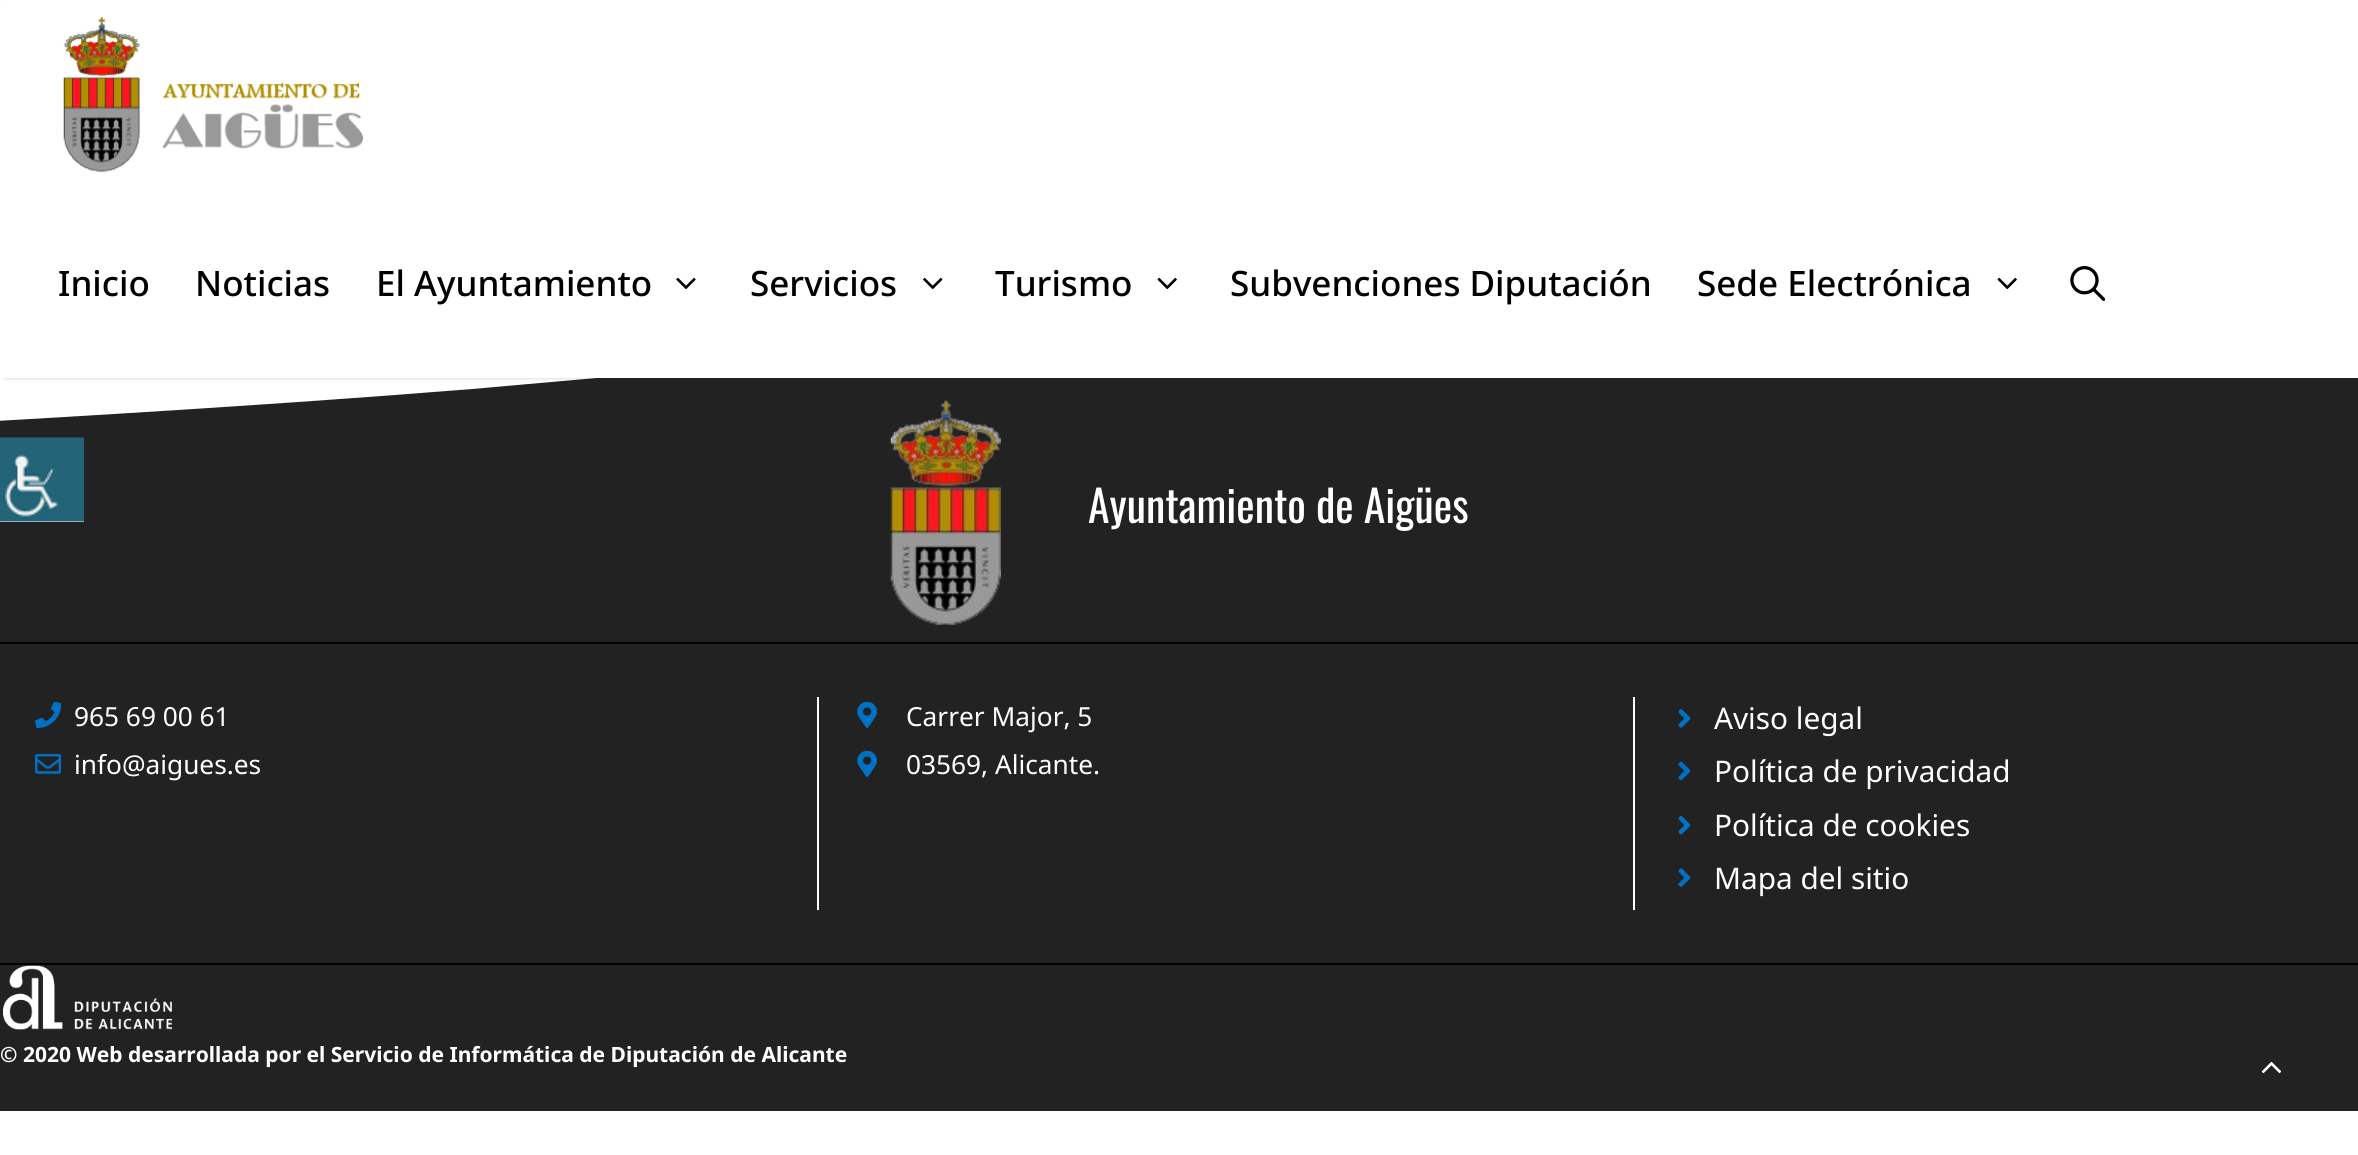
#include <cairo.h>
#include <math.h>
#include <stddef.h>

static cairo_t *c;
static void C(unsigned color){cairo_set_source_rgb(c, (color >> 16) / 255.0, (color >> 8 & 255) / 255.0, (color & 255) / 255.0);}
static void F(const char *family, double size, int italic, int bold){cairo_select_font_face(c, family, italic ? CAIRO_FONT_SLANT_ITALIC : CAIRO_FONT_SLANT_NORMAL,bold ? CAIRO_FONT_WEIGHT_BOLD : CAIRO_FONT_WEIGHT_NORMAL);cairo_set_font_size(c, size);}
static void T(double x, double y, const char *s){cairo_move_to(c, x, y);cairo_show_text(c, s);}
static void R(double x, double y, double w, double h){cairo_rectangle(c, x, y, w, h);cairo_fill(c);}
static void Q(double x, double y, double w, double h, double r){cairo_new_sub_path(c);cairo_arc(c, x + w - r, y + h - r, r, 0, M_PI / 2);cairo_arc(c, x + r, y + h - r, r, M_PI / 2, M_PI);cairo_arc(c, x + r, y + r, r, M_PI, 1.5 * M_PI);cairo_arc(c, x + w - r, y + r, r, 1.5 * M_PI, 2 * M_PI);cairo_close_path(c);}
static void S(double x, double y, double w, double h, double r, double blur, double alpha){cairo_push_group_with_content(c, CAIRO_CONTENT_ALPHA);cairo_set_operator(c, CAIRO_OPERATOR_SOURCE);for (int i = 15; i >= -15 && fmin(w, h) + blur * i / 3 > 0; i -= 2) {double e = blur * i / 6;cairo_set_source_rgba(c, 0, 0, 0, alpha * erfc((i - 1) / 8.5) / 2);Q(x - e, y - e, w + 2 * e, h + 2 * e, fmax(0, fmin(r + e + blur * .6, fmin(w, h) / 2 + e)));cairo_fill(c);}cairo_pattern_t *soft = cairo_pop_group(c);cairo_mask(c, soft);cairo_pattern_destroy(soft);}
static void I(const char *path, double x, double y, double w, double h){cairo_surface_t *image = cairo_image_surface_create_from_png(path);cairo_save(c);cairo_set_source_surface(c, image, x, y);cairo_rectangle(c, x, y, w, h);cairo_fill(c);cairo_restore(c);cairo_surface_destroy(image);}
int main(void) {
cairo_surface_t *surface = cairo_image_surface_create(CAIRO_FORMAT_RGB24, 2358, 1155);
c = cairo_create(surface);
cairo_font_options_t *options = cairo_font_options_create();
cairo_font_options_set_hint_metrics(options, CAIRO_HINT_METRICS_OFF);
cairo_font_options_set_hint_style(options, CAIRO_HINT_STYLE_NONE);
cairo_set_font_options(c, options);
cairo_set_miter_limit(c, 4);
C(0xffffff);
cairo_paint(c);
C(0x222222);
R(0,378,2358,733);
I("7.png",890,400,111,225);
C(0xffffff);
cairo_new_path(c);
cairo_move_to(c,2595,338);
cairo_curve_to(c,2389,326,2182,315,1975,310);
cairo_curve_to(c,1799,306,1622,307,1445,314);
cairo_curve_to(c,1297,319,1150,329,1003,342);
cairo_line_to(c,472,389);
cairo_curve_to(c,236,408,0,421,-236,434);
cairo_line_to(c,-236,294);
cairo_line_to(c,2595,294);
cairo_close_path(c);
cairo_fill(c);
C(0x000000);
S(4,7,2352,371,0,2,.2);
C(0xffffff);
R(1,4,2357,374);
I("1.png",63,17,301,156);
F("Noto Sans Medium",35,0,0);
C(0x000000);
T(58,296,"Inicio");
T(195,296,"Noticias");
T(376,296,"El Ayuntamiento");
I("2.png",676,277,20,13);
T(750,296,"Servicios");
I("3.png",923,277,20,13);
T(995,296,"Turismo");
I("4.png",1157,277,20,13);
T(1230,296,"Subvenciones Diputación");
T(1697,296,"Sede Electrónica");
I("4.png",1997,277,20,13);
I("5.png",2070,266,35,35);
C(0xffffff);
R(0,521,84,1);
I("6.png",0,437,84,85);
F("Oswald",43.75,0,0);
T(1088,523,"Ayuntamiento de Aigües");
C(0x000000);
R(0,642,2358,2);
R(0,963,2358,2);
I("8.png",35,702,26,26);
F("Noto Sans",26.25,0,0);
C(0xffffff);
T(74,726,"965 69 00 61");
I("9.png",35,754,26,20);
T(74,774,"info@aigues.es");
R(817,697,2,213);
I("10.png",857,702,20,26);
T(906,726,"Carrer Major, 5");
I("10.png",857,751,20,26);
T(906,774,"03569, Alicante.");
R(1633,697,2,213);
I("11.png",1678,709,13,19);
F("Noto Sans",29.75,0,0);
T(1714,729,"Aviso legal");
I("12.png",1678,761,13,20);
T(1714,782,"Política de privacidad");
I("13.png",1678,815,13,20);
T(1714,836,"Política de cookies");
I("14.png",1678,868,13,19);
T(1714,889,"Mapa del sitio");
I("15.png",3,965,169,65);
F("Noto Sans",21,0,1);
T(0,1062,"© 2020 Web desarrollada por el Servicio de Informática de Diputación de Alicante");
I("16.png",2261,1061,21,13);
cairo_surface_write_to_png(surface, "o.png");
cairo_font_options_destroy(options);
cairo_destroy(c);
cairo_surface_destroy(surface);
return 0;
}
